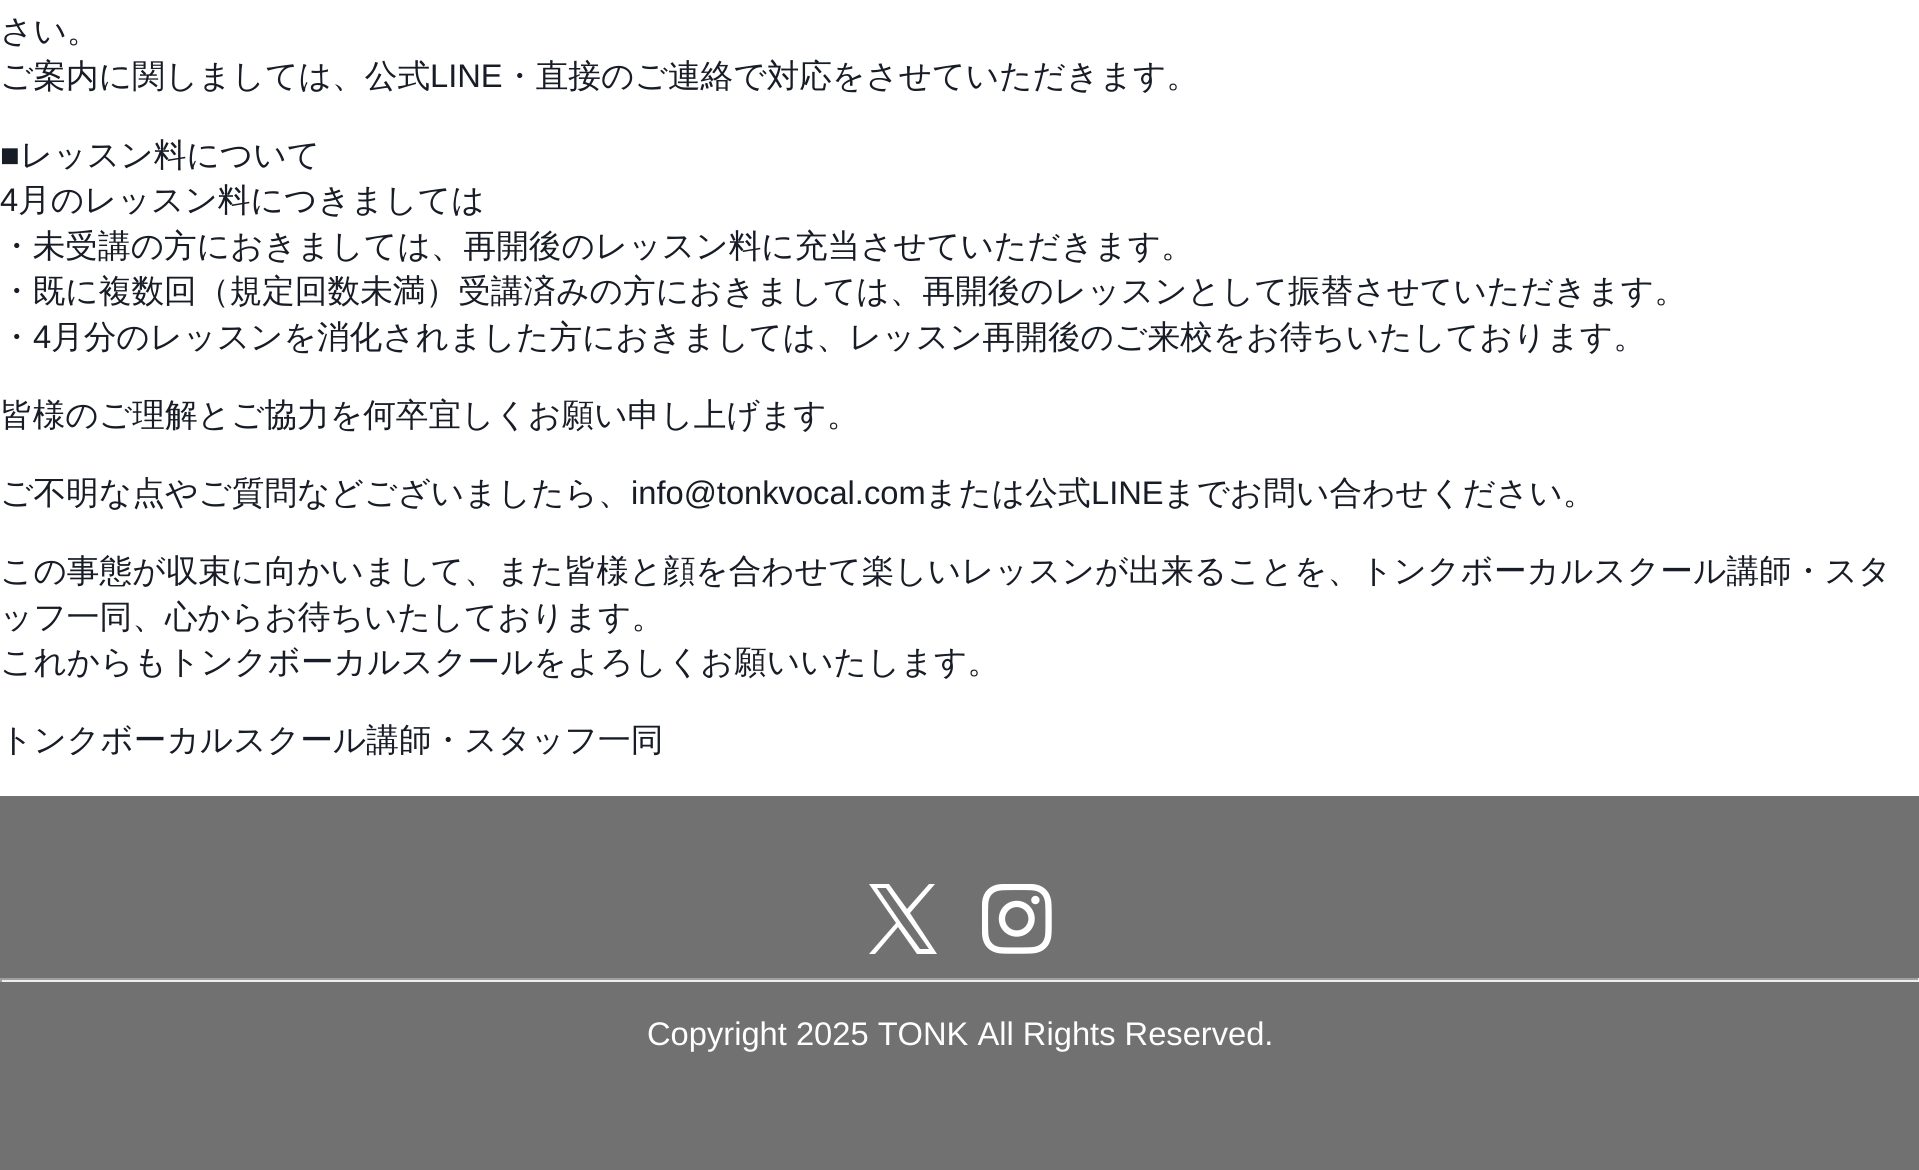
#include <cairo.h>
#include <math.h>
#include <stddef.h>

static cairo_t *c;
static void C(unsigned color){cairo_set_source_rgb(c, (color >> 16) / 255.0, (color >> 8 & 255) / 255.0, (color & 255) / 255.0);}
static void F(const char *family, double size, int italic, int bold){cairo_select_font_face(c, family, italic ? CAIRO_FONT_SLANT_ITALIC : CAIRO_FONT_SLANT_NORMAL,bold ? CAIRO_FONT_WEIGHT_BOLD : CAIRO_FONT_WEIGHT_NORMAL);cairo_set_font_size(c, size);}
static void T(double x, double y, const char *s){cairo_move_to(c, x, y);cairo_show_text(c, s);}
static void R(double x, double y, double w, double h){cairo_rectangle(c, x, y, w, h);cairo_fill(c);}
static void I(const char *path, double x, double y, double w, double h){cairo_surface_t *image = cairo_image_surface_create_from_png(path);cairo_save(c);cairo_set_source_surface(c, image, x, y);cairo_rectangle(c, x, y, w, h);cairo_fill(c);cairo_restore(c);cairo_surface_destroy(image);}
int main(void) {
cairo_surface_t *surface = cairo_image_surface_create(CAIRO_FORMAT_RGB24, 1919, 1170);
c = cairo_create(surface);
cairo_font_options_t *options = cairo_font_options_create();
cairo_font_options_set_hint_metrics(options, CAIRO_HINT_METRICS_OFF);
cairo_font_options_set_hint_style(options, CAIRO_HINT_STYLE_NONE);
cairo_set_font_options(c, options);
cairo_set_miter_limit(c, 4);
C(0xffffff);
cairo_paint(c);
F("WenQuanYi Zen Hei Medium",32.67,0,0);
C(0x171c26);
T(0,42,"さい。");
T(0,87,"ご案内に関しましては、公式");
F("Liberation Sans",32.67,0,0);
T(430,87,"LINE");
F("WenQuanYi Zen Hei Medium",32.67,0,0);
T(503,87,"・直接のご連絡で対応をさせていただきます。");
F("Liberation Sans",32.67,0,0);
T(0,166,"■");
F("WenQuanYi Zen Hei Medium",32.67,0,0);
T(20,166,"レッスン料について");
F("Liberation Sans",32.67,0,0);
T(0,211,"4");
F("WenQuanYi Zen Hei Medium",32.67,0,0);
T(18,211,"月のレッスン料につきましては");
T(0,257,"・未受講の方におきましては、再開後のレッスン料に充当させていただきます。");
T(0,302,"・既に複数回（規定回数未満）受講済みの方におきましては、再開後のレッスンとして振替させていただきます。");
T(0,348,"・");
F("Liberation Sans",32.67,0,0);
T(33,348,"4");
F("WenQuanYi Zen Hei Medium",32.67,0,0);
T(51,348,"月分のレッスンを消化されました方におきましては、レッスン再開後のご来校をお待ちいたしております。");
T(0,426,"皆様のご理解とご協力を何卒宜しくお願い申し上げます。");
T(0,504,"ご不明な点やご質問などございましたら、");
F("Liberation Sans",32.67,0,0);
T(631,504,"info@tonkvocal.com");
F("WenQuanYi Zen Hei Medium",32.67,0,0);
T(925,504,"または公式");
F("Liberation Sans",32.67,0,0);
T(1091,504,"LINE");
F("WenQuanYi Zen Hei Medium",32.67,0,0);
T(1163,504,"までお問い合わせください。");
T(0,582,"この事態が収束に向かいまして、また皆様と顔を合わせて楽しいレッスンが出来ることを、トンクボーカルスクール講師・スタ");
T(0,628,"ッフ一同、心からお待ちいたしております。");
T(0,673,"これからもトンクボーカルスクールをよろしくお願いいたします。");
T(0,751,"トンクボーカルスクール講師・スタッフ一同");
C(0x717171);
R(0,796,1919,374);
C(0xffffff);
cairo_new_path(c);
cairo_move_to(c,910,913);
cairo_line_to(c,935,884);
cairo_line_to(c,929,884);
cairo_line_to(c,907,909);
cairo_line_to(c,889,884);
cairo_line_to(c,869,884);
cairo_line_to(c,896,923);
cairo_line_to(c,869,954);
cairo_line_to(c,875,954);
cairo_line_to(c,898,927);
cairo_line_to(c,917,954);
cairo_line_to(c,937,954);
cairo_close_path(c);
cairo_move_to(c,901,923);
cairo_line_to(c,877,888);
cairo_line_to(c,886,888);
cairo_line_to(c,929,949);
cairo_line_to(c,920,949);
cairo_close_path(c);
cairo_fill(c);
I("1.png",982,884,70,70);
C(0x9f9f9f);
R(0,978,1919,2);
C(0xeeeeee);
R(1918,978,1,4);
R(0,980,1919,2);
C(0x9f9f9f);
R(0,978,2,4);
F("Liberation Sans",32.67,0,0);
C(0xffffff);
T(647,1045,"Copyright 2025 TONK All Rights Reserved.");
cairo_surface_write_to_png(surface, "o.png");
cairo_font_options_destroy(options);
cairo_destroy(c);
cairo_surface_destroy(surface);
return 0;
}
